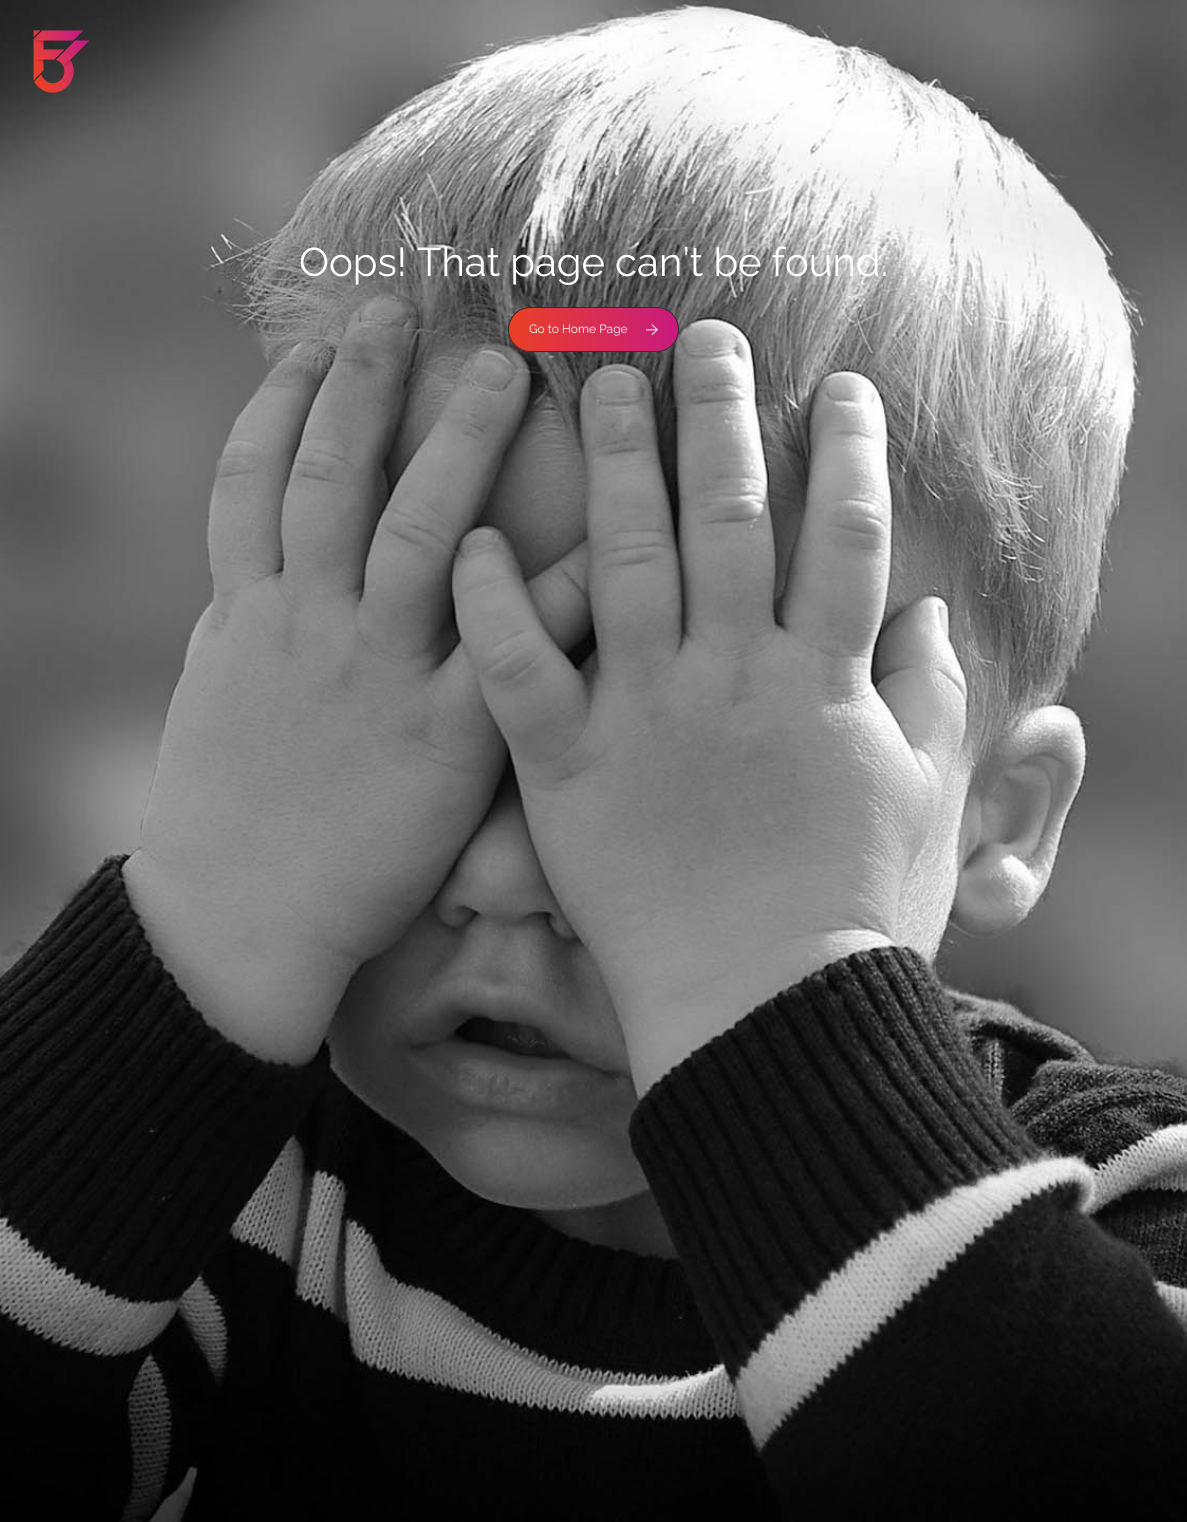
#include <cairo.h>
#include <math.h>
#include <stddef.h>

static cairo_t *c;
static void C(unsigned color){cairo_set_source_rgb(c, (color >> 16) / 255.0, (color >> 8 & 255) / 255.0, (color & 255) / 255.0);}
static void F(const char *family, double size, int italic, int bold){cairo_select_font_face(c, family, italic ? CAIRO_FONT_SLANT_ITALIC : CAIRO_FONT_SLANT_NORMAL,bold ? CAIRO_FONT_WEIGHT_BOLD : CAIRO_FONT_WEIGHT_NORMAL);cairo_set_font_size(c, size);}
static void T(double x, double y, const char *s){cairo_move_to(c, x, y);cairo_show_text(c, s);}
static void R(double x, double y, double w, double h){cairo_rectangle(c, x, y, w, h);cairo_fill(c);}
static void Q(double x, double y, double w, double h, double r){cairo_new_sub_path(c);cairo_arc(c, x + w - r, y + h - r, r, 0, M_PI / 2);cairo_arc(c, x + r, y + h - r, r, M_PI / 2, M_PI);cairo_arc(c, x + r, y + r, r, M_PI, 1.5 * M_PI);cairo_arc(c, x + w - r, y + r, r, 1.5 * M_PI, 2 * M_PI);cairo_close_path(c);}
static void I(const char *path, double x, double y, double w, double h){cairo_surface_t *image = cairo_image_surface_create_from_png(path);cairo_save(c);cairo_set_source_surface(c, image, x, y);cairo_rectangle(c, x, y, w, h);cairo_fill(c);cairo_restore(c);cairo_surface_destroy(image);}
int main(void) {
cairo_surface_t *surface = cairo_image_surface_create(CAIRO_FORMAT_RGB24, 1187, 1522);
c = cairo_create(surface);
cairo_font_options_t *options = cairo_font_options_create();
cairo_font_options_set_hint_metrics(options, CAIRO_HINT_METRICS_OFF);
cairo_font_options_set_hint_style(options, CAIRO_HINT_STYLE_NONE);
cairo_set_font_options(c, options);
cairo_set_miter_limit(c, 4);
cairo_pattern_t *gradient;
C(0xffffff);
cairo_paint(c);
I("2.png",0,0,1187,1522);
I("1.png",33,30,56,63);
F("Raleway Thin",40,0,0);
C(0xffffff);
T(299,276,"Oops! That page can’t be found.");
cairo_save(c);
Q(508,307,171,45,22.5);
cairo_clip(c);
gradient = cairo_pattern_create_linear(509,330,678,330);
cairo_pattern_add_color_stop_rgba(gradient,0,1,0.439,0.008,1);
cairo_pattern_add_color_stop_rgba(gradient,0,0.918,0.251,0.145,1);
cairo_pattern_add_color_stop_rgba(gradient,1,0.784,0.102,0.502,1);
cairo_pattern_add_color_stop_rgba(gradient,1,1,0.714,0.494,1);
cairo_set_source(c,gradient);
cairo_pattern_destroy(gradient);
R(509,307,169,45);
cairo_restore(c);
Q(508.5,307.5,170,44,22);
C(0x2f2f2f);
cairo_set_line_width(c,1);
cairo_stroke(c);
F("Raleway Thin",12,0,0);
C(0xffffff);
T(529,333,"Go to Home Page");
I("3.png",646,324,12,11);
cairo_surface_write_to_png(surface, "o.png");
cairo_font_options_destroy(options);
cairo_destroy(c);
cairo_surface_destroy(surface);
return 0;
}
